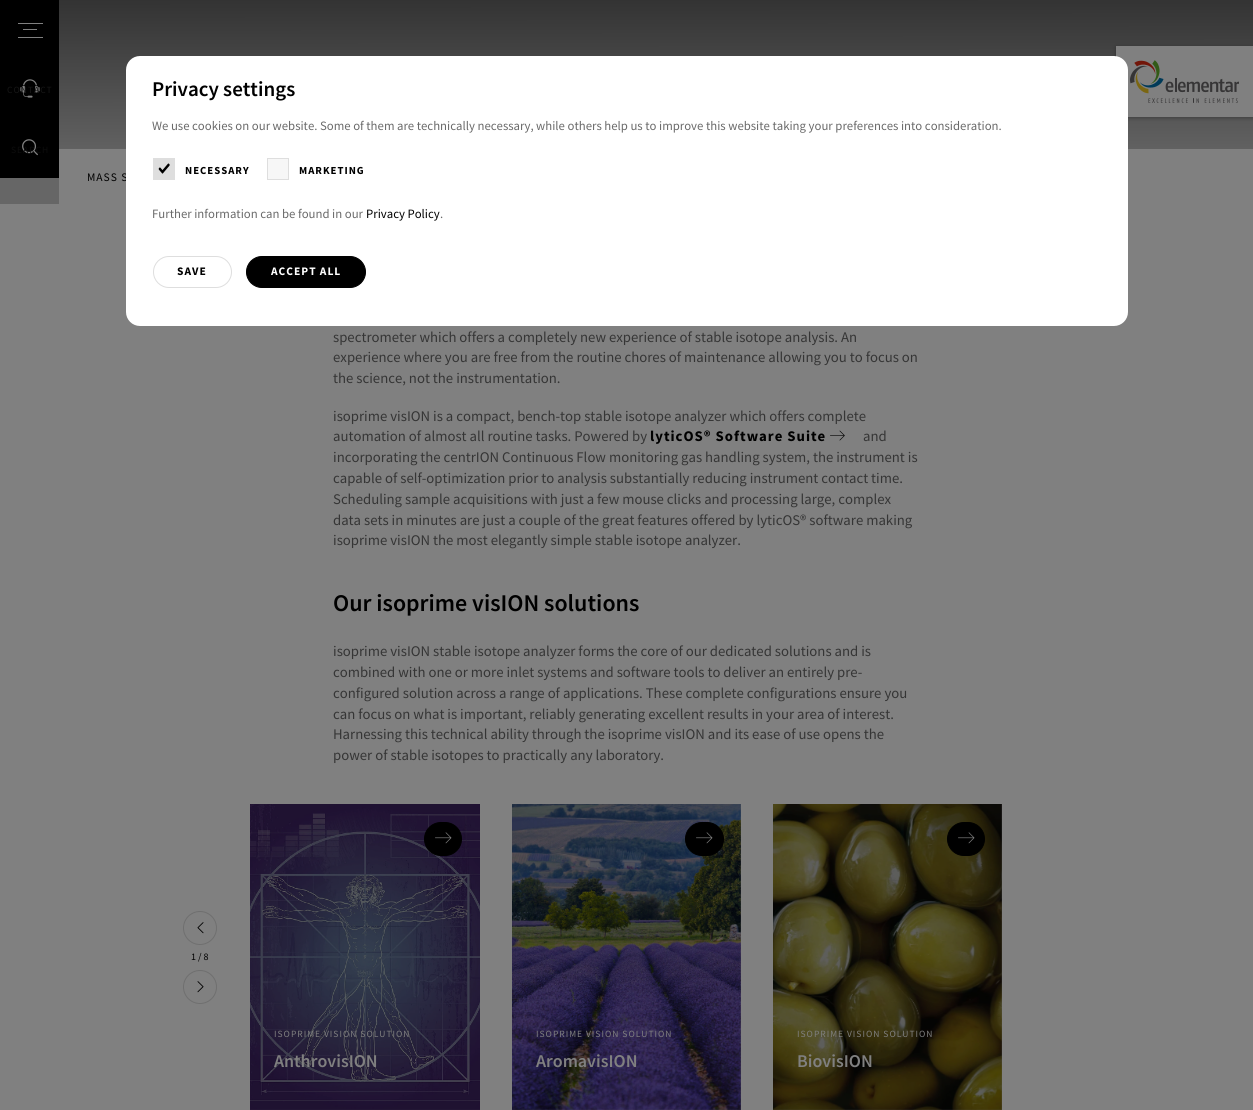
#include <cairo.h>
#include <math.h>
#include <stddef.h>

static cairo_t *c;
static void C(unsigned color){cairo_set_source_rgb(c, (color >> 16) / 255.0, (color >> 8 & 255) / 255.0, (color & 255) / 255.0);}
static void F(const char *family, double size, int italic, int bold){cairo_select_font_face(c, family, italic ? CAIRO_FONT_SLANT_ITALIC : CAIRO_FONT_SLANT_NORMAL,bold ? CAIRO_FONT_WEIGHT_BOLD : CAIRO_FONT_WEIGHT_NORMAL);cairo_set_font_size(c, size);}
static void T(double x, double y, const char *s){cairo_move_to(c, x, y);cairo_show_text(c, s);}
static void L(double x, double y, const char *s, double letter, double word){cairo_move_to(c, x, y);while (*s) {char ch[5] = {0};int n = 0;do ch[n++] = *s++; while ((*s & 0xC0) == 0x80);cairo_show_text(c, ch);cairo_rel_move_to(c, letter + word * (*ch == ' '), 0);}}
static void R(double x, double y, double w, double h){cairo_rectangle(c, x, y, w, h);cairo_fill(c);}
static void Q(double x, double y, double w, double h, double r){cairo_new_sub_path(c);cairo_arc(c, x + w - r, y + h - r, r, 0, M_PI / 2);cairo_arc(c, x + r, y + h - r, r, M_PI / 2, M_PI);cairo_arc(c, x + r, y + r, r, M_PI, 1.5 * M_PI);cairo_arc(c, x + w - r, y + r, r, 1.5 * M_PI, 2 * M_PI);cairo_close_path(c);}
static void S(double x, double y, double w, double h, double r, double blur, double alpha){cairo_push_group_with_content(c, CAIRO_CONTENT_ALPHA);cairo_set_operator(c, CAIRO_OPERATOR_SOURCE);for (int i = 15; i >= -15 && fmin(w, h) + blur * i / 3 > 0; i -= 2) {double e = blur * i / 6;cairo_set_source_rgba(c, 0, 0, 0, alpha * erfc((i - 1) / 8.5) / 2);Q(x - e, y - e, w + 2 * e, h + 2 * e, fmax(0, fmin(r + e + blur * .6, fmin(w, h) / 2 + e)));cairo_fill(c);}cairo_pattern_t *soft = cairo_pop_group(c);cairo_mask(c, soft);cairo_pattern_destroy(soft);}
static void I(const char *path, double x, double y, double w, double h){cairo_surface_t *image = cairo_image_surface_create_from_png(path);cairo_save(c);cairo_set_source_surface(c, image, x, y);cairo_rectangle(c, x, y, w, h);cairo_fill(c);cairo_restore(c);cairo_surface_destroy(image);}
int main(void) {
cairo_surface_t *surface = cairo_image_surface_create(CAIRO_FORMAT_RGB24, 1253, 1110);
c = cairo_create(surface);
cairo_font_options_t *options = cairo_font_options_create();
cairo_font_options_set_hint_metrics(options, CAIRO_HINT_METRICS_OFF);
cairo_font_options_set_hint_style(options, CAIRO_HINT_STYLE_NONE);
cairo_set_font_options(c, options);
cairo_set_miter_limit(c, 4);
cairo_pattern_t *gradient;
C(0x808080);
cairo_paint(c);
gradient = cairo_pattern_create_linear(626,0,627,1110);
cairo_pattern_add_color_stop_rgba(gradient,0,0,0,0,.6);
cairo_pattern_add_color_stop_rgba(gradient,.15,0,0,0,.2);
cairo_pattern_add_color_stop_rgba(gradient,1,0,0,0,.2);
cairo_set_source(c,gradient);
cairo_pattern_destroy(gradient);
R(0,0,1253,204);
C(0x000000);
R(0,0,59,178);
C(0x808080);
R(18,23,25,1);
R(23,29,14,1);
R(18,37,25,1);
I("1.png",20,79,20,19);
F("Source Sans Pro",9.5,0,0);
C(0x161616);
L(7,93,"CONTACT",1,0);
I("2.png",22,139,16,17);
C(0x0c0c0c);
L(11,153,"SEARCH",1,0);
C(0x000000);
S(1116,47,137,71,0,2,.3);
C(0x808080);
R(1116,46,137,71);
I("3.png",1130,60,109,43);
R(59,149,1194,55);
F("Source Sans Pro",11.5,0,0);
C(0x000000);
L(87,181,"MASS S",1,0);
C(0xffffff);
Q(126,56,1002,270,14);
cairo_fill(c);
F("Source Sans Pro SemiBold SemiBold",21,0,0);
C(0x000000);
T(152,96,"Privacy settings");
F("Source Sans Pro",12.75,0,0);
C(0x696969);
T(152,130,"We use cookies on our website. Some of them are technically necessary, while others help us to improve this website taking your preferences into consideration.");
C(0xdedede);
R(153,158,22,22);
I("4.png",158,163,12,11);
F("Source Sans Pro",10.75,0,1);
C(0x000000);
L(185,174,"NECESSARY",1,0);
C(0xf7f7f7);
cairo_rectangle(c,267.5,158.5,21,21);
cairo_fill_preserve(c);
C(0xdedede);
cairo_set_line_width(c,1);
cairo_stroke(c);
C(0x000000);
L(299,174,"MARKETING",1,0);
F("Source Sans Pro",12.75,0,0);
C(0x696969);
T(152,218,"Further information can be found in our");
C(0x000000);
T(366,218,"Privacy Policy");
C(0x696969);
T(440,218,".");
Q(153.5,256.5,78,31,15.5);
C(0xdedede);
cairo_stroke(c);
F("Source Sans Pro",11.5,0,1);
C(0x000000);
L(177,275,"SAVE",1,0);
Q(246.5,256.5,119,31,15.5);
cairo_fill_preserve(c);
cairo_stroke(c);
C(0xffffff);
L(271,275,"ACCEPT ALL",1,0);
F("Source Sans Pro",14.75,0,0);
C(0x353535);
T(333,342,"spectrometer which offers a completely new experience of stable isotope analysis. An");
T(333,362,"experience where you are free from the routine chores of maintenance allowing you to focus on");
T(333,383,"the science, not the instrumentation.");
T(333,421,"isoprime visION is a compact, bench-top stable isotope analyzer which offers complete");
T(333,441,"automation of almost all routine tasks. Powered by");
F("Source Sans Pro",14.75,0,1);
C(0x000000);
L(650,441,"lyticOS® Software Suite",1,0);
I("5.png",830,430,15,11);
F("Source Sans Pro",14.75,0,0);
C(0x353535);
T(863,441,"and");
T(333,462,"incorporating the centrION Continuous Flow monitoring gas handling system, the instrument is");
T(333,483,"capable of self-optimization prior to analysis substantially reducing instrument contact time.");
T(333,504,"Scheduling sample acquisitions with just a few mouse clicks and processing large, complex");
T(333,525,"data sets in minutes are just a couple of the great features offered by lyticOS® software making");
T(333,545,"isoprime visION the most elegantly simple stable isotope analyzer.");
F("Source Sans Pro SemiBold SemiBold",24,0,0);
C(0x000000);
T(333,611,"Our isoprime visION solutions");
F("Source Sans Pro",14.75,0,0);
C(0x353535);
T(333,656,"isoprime visION stable isotope analyzer forms the core of our dedicated solutions and is");
T(333,677,"combined with one or more inlet systems and software tools to deliver an entirely pre-");
T(333,698,"configured solution across a range of applications. These complete configurations ensure you");
T(333,719,"can focus on what is important, reliably generating excellent results in your area of interest.");
T(333,739,"Harnessing this technical ability through the isoprime visION and its ease of use opens the");
T(333,760,"power of stable isotopes to practically any laboratory.");
cairo_new_path(c);
cairo_arc(c,200,928,16.5,0,2 * M_PI);
C(0x6f6f6f);
cairo_stroke(c);
I("6.png",197,922,7,12);
F("Source Sans Pro",10,0,0);
C(0x000000);
T(191,960,"1 / 8");
cairo_new_path(c);
cairo_arc(c,200,987,16.5,0,2 * M_PI);
C(0x6f6f6f);
cairo_stroke(c);
I("7.png",197,981,7,12);
I("8.png",250,804,230,306);
cairo_set_source_rgba(c,0,0,0,0.25);
R(250,804,230,306);
C(0x000000);
Q(424.5,822.5,37,33,16.5);
cairo_fill_preserve(c);
cairo_stroke(c);
I("9.png",435,832,17,12);
F("Source Sans Pro",9.5,0,0);
C(0x808080);
L(274,1037,"ISOPRIME VISION SOLUTION",1,0);
F("Source Sans Pro SemiBold SemiBold",18,0,0);
T(274,1067,"AnthrovisION");
I("10.png",512,804,229,306);
cairo_set_source_rgba(c,0,0,0,0.25);
R(512,804,229,306);
C(0x000000);
Q(685.5,822.5,38,33,16.5);
cairo_fill_preserve(c);
cairo_stroke(c);
I("9.png",696,832,17,12);
F("Source Sans Pro",9.5,0,0);
C(0x808080);
L(536,1037,"ISOPRIME VISION SOLUTION",1,0);
F("Source Sans Pro SemiBold SemiBold",18,0,0);
T(536,1067,"AromavisION");
I("11.png",773,804,229,306);
cairo_set_source_rgba(c,0,0,0,0.25);
R(773,804,229,306);
C(0x000000);
Q(947.5,822.5,37,33,16.5);
cairo_fill_preserve(c);
cairo_stroke(c);
I("9.png",958,832,17,12);
F("Source Sans Pro",9.5,0,0);
C(0x808080);
L(797,1037,"ISOPRIME VISION SOLUTION",1,0);
F("Source Sans Pro SemiBold SemiBold",18,0,0);
T(797,1067,"BiovisION");
cairo_surface_write_to_png(surface, "o.png");
cairo_font_options_destroy(options);
cairo_destroy(c);
cairo_surface_destroy(surface);
return 0;
}
